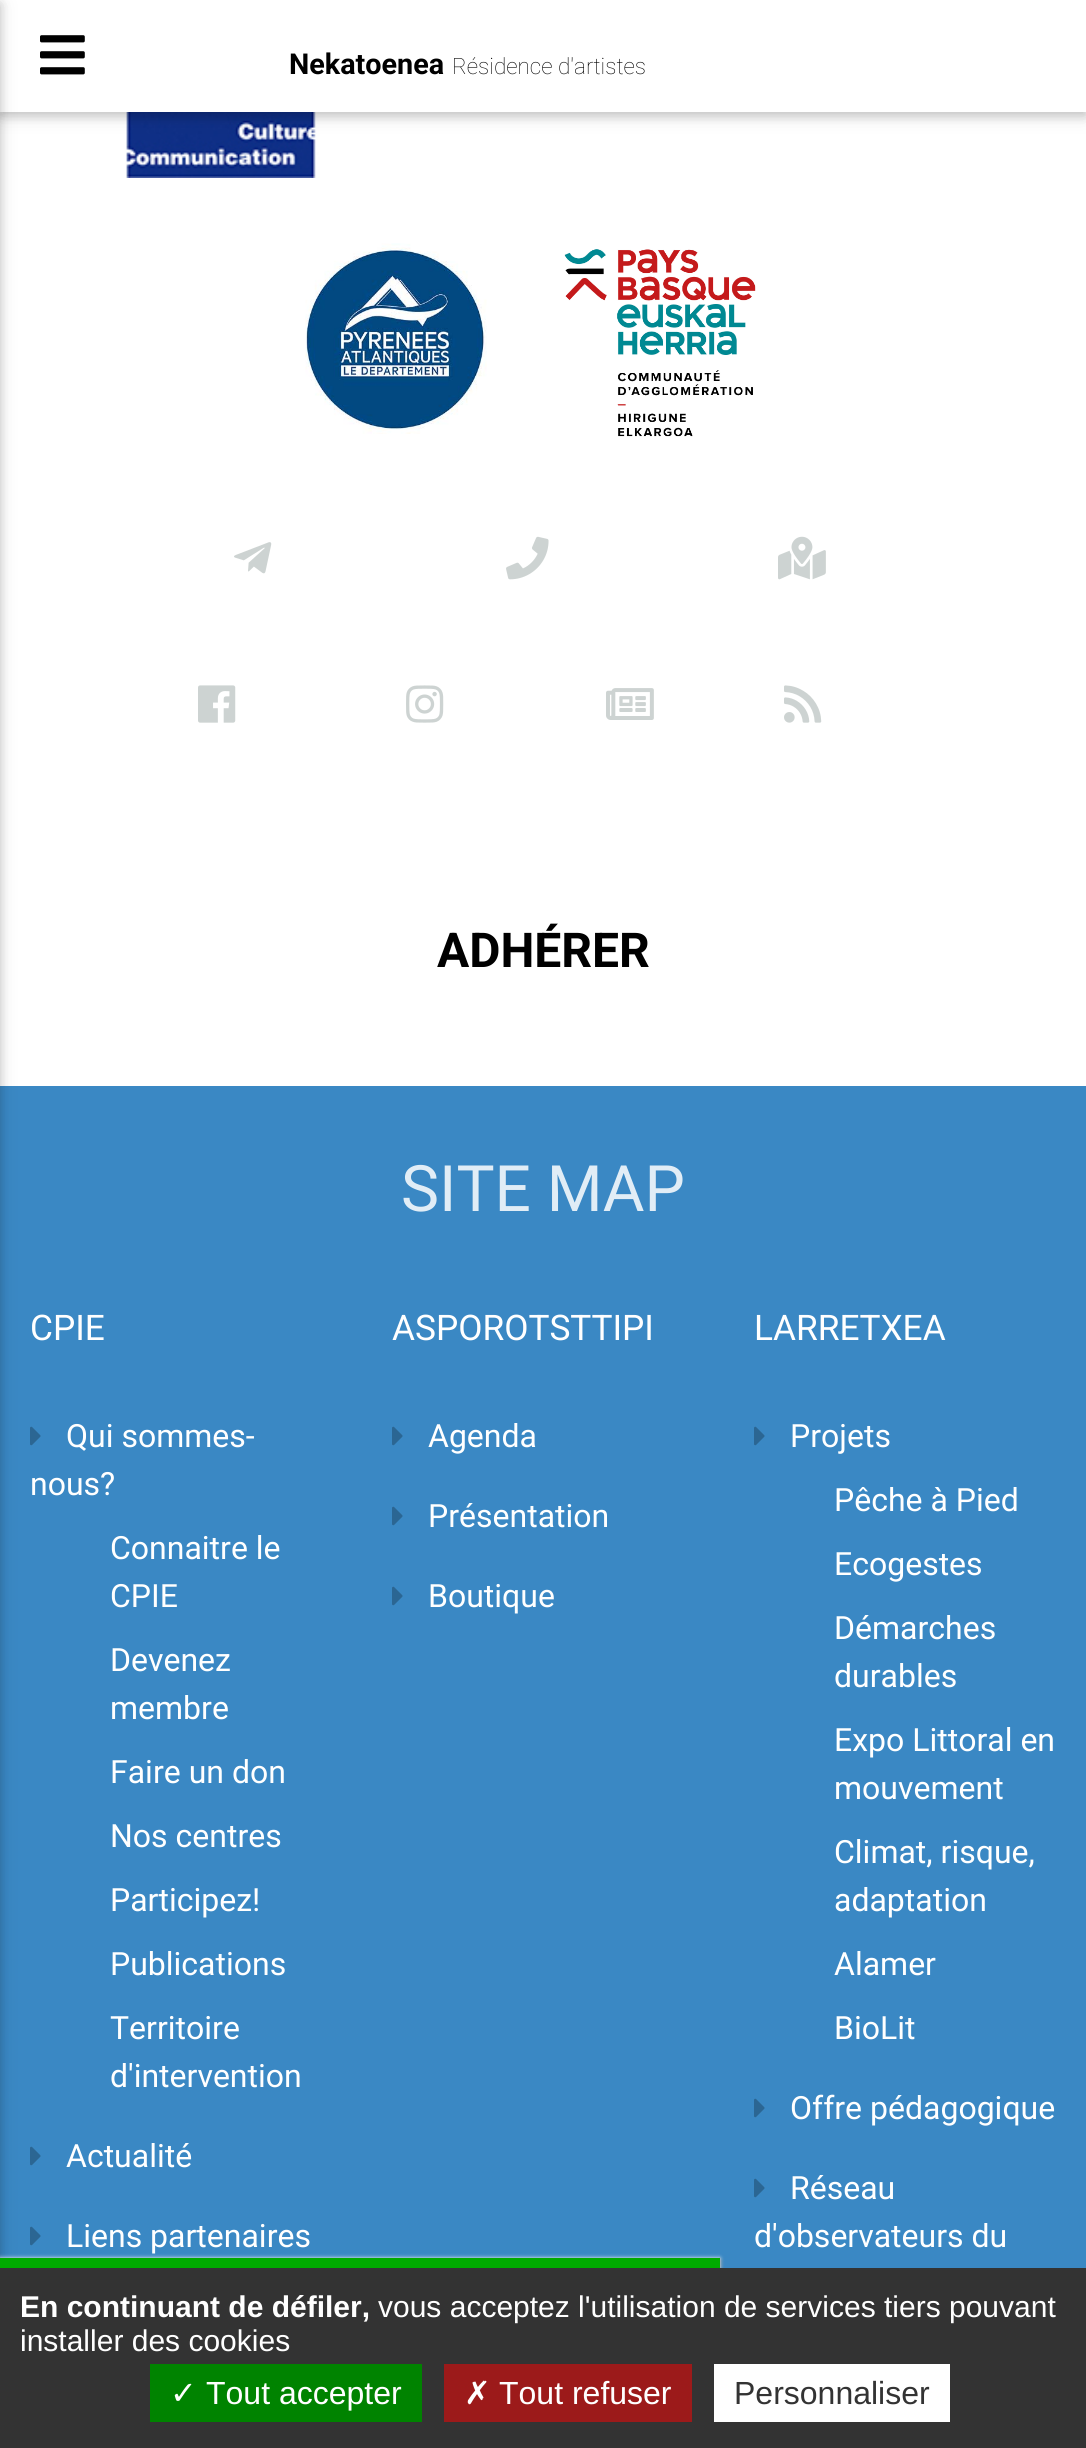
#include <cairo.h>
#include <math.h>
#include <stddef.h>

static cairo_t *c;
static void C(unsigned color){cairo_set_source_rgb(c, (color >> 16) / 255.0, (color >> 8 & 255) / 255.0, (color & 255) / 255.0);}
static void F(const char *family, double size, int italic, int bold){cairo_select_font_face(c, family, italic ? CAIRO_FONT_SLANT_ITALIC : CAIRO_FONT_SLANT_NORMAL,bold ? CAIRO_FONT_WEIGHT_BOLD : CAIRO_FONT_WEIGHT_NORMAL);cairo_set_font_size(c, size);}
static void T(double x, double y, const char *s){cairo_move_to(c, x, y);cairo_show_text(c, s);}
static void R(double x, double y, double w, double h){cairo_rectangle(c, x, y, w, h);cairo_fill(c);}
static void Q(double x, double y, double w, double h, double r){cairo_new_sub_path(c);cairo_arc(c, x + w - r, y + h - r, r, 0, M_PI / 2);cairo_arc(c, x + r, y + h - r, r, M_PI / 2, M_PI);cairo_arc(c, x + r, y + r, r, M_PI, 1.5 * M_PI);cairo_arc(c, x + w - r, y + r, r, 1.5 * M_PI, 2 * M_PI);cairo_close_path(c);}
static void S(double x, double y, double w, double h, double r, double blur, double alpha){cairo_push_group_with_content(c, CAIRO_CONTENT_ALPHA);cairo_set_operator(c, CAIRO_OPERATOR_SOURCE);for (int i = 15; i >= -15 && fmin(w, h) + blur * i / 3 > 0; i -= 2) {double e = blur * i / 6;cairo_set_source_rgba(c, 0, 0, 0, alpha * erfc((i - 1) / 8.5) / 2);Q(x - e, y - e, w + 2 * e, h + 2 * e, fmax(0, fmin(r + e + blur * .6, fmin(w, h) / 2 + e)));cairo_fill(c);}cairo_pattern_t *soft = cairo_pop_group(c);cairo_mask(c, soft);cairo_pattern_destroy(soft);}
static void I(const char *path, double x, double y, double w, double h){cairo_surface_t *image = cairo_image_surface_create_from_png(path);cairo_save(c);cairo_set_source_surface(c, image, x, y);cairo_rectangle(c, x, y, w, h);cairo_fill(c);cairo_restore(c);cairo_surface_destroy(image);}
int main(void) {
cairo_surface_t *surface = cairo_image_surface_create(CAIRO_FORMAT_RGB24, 1086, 2448);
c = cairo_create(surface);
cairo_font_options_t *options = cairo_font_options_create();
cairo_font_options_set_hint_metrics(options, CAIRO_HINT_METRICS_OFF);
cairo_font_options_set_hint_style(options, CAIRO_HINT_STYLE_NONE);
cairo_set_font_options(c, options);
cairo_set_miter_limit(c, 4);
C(0xffffff);
cairo_paint(c);
I("2.png",125,112,195,66);
C(0x000000);
S(0,4,1086,112,0,10,.12);
S(0,4,1086,112,0,5,.16);
C(0xffffff);
R(0,0,1086,112);
C(0x3a88c4);
R(0,1086,1086,1182);
I("12.png",30,1426,11,20);
I("12.png",30,2146,11,20);
I("12.png",30,2226,11,20);
C(0x000000);
S(-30,4,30,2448,0,10,.12);
S(-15,4,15,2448,0,5,.16);
I("1.png",40,35,45,40);
F("Roboto",28.75,0,1);
C(0x000000);
T(289,74,"Nekatoenea");
F("Roboto Thin",22.5,0,0);
T(452,74,"Résidence d'artistes");
I("3.png",305,243,182,191);
I("4.png",564,249,192,188);
I("5.png",234,542,38,32);
I("6.png",506,536,43,44);
I("7.png",778,536,48,44);
I("8.png",198,685,38,38);
I("9.png",406,685,38,38);
I("10.png",606,688,48,32);
I("11.png",784,685,38,38);
F("Roboto",48,0,1);
T(437,967,"ADHÉRER");
F("Roboto",64,0,0);
C(0xe1edf6);
T(401,1211,"SITE MAP");
F("Roboto",35.25,0,0);
C(0xffffff);
T(30,1340,"CPIE");
F("Roboto",32,0,0);
T(66,1447,"Qui sommes-");
T(30,1495,"nous?");
T(110,1559,"Connaitre le");
T(110,1607,"CPIE");
T(110,1671,"Devenez");
T(110,1719,"membre");
T(110,1783,"Faire un don");
T(110,1847,"Nos centres");
T(110,1911,"Participez!");
T(110,1975,"Publications");
T(110,2039,"Territoire");
T(110,2087,"d'intervention");
T(66,2167,"Actualité");
T(66,2247,"Liens partenaires");
F("Roboto",35.25,0,0);
T(392,1340,"ASPOROTSTTIPI");
I("12.png",392,1426,11,20);
F("Roboto",32,0,0);
T(428,1447,"Agenda");
I("12.png",392,1506,11,20);
T(428,1527,"Présentation");
I("12.png",392,1586,11,20);
T(428,1607,"Boutique");
F("Roboto",35.25,0,0);
T(754,1340,"LARRETXEA");
I("12.png",754,1426,11,20);
F("Roboto",32,0,0);
T(790,1447,"Projets");
T(834,1511,"Pêche à Pied");
T(834,1575,"Ecogestes");
T(834,1639,"Démarches");
T(834,1687,"durables");
T(834,1751,"Expo Littoral en");
T(834,1799,"mouvement");
T(834,1863,"Climat, risque,");
T(834,1911,"adaptation");
T(834,1975,"Alamer");
T(834,2039,"BioLit");
I("12.png",754,2098,11,20);
T(790,2119,"Offre pédagogique");
I("12.png",754,2178,11,20);
T(790,2199,"Réseau");
T(754,2247,"d'observateurs du");
C(0x555555);
S(0,2260,720,10,0,2,1);
C(0xffffff);
S(0,2258,720,10,0,2,1);
C(0x00aa00);
R(0,2258,720,10);
C(0x333333);
R(0,2268,1086,180);
F("Liberation Sans",30,0,1);
C(0xffffff);
T(20,2317,"En continuant de défiler,");
F("Liberation Sans",30,0,0);
T(378,2317,"vous acceptez l'utilisation de services tiers pouvant");
T(20,2351,"installer des cookies");
C(0x008300);
R(150,2364,272,58);
F("DejaVu Sans",32,0,0);
C(0xffffff);
T(170,2404,"✓");
F("Liberation Sans",32,0,0);
T(206,2404,"Tout accepter");
C(0x9c1a1a);
R(444,2364,248,58);
F("DejaVu Sans",32,0,0);
C(0xffffff);
T(464,2404,"✗");
F("Liberation Sans",32,0,0);
T(499,2404,"Tout refuser");
R(714,2364,236,58);
C(0x333333);
T(734,2404,"Personnaliser");
cairo_surface_write_to_png(surface, "o.png");
cairo_font_options_destroy(options);
cairo_destroy(c);
cairo_surface_destroy(surface);
return 0;
}
